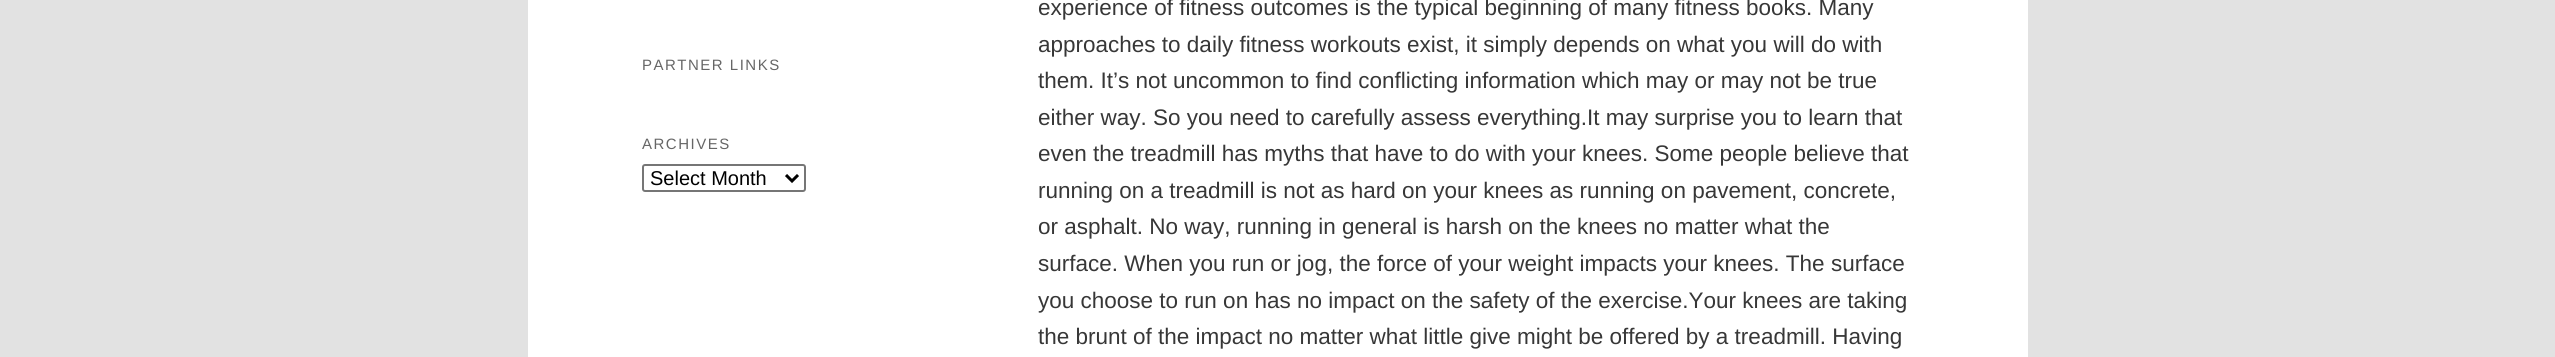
#include <cairo.h>
#include <math.h>
#include <stddef.h>

static cairo_t *c;
static void C(unsigned color){cairo_set_source_rgb(c, (color >> 16) / 255.0, (color >> 8 & 255) / 255.0, (color & 255) / 255.0);}
static void F(const char *family, double size, int italic, int bold){cairo_select_font_face(c, family, italic ? CAIRO_FONT_SLANT_ITALIC : CAIRO_FONT_SLANT_NORMAL,bold ? CAIRO_FONT_WEIGHT_BOLD : CAIRO_FONT_WEIGHT_NORMAL);cairo_set_font_size(c, size);}
static void T(double x, double y, const char *s){cairo_move_to(c, x, y);cairo_show_text(c, s);}
static void L(double x, double y, const char *s, double letter, double word){cairo_move_to(c, x, y);while (*s) {char ch[5] = {0};int n = 0;do ch[n++] = *s++; while ((*s & 0xC0) == 0x80);cairo_show_text(c, ch);cairo_rel_move_to(c, letter + word * (*ch == ' '), 0);}}
static void R(double x, double y, double w, double h){cairo_rectangle(c, x, y, w, h);cairo_fill(c);}
static void Q(double x, double y, double w, double h, double r){cairo_new_sub_path(c);cairo_arc(c, x + w - r, y + h - r, r, 0, M_PI / 2);cairo_arc(c, x + r, y + h - r, r, M_PI / 2, M_PI);cairo_arc(c, x + r, y + r, r, M_PI, 1.5 * M_PI);cairo_arc(c, x + w - r, y + r, r, 1.5 * M_PI, 2 * M_PI);cairo_close_path(c);}
int main(void) {
cairo_surface_t *surface = cairo_image_surface_create(CAIRO_FORMAT_RGB24, 2555, 357);
c = cairo_create(surface);
cairo_font_options_t *options = cairo_font_options_create();
cairo_font_options_set_hint_metrics(options, CAIRO_HINT_METRICS_OFF);
cairo_font_options_set_hint_style(options, CAIRO_HINT_STYLE_NONE);
cairo_set_font_options(c, options);
cairo_set_miter_limit(c, 4);
C(0xe2e2e2);
cairo_paint(c);
C(0xffffff);
R(528,0,1500,357);
F("Liberation Sans",15,0,0);
C(0x666666);
L(642,70,"PARTNER LINKS",1.5,0);
L(642,149,"ARCHIVES",1.5,0);
Q(643,165,162,26,2);
C(0x767676);
cairo_stroke(c);
cairo_new_path(c);
cairo_move_to(c,786,175);
cairo_line_to(c,792,181);
cairo_line_to(c,798,175);
C(0x000000);
cairo_set_line_width(c,3);
cairo_stroke(c);
F("Liberation Sans",20,0,0);
T(650,185,"Select Month");
F("Liberation Sans",22.5,0,0);
C(0x373737);
T(1038,15,"experience of fitness outcomes is the typical beginning of many fitness books. Many");
T(1038,52,"approaches to daily fitness workouts exist, it simply depends on what you will do with");
T(1038,88,"them. It’s not uncommon to find conflicting information which may or may not be true");
T(1038,125,"either way. So you need to carefully assess everything.It may surprise you to learn that");
T(1038,161,"even the treadmill has myths that have to do with your knees. Some people believe that");
T(1038,198,"running on a treadmill is not as hard on your knees as running on pavement, concrete,");
T(1038,234,"or asphalt. No way, running in general is harsh on the knees no matter what the");
T(1038,271,"surface. When you run or jog, the force of your weight impacts your knees. The surface");
T(1038,308,"you choose to run on has no impact on the safety of the exercise.Your knees are taking");
T(1038,344,"the brunt of the impact no matter what little give might be offered by a treadmill. Having");
cairo_surface_write_to_png(surface, "o.png");
cairo_font_options_destroy(options);
cairo_destroy(c);
cairo_surface_destroy(surface);
return 0;
}
